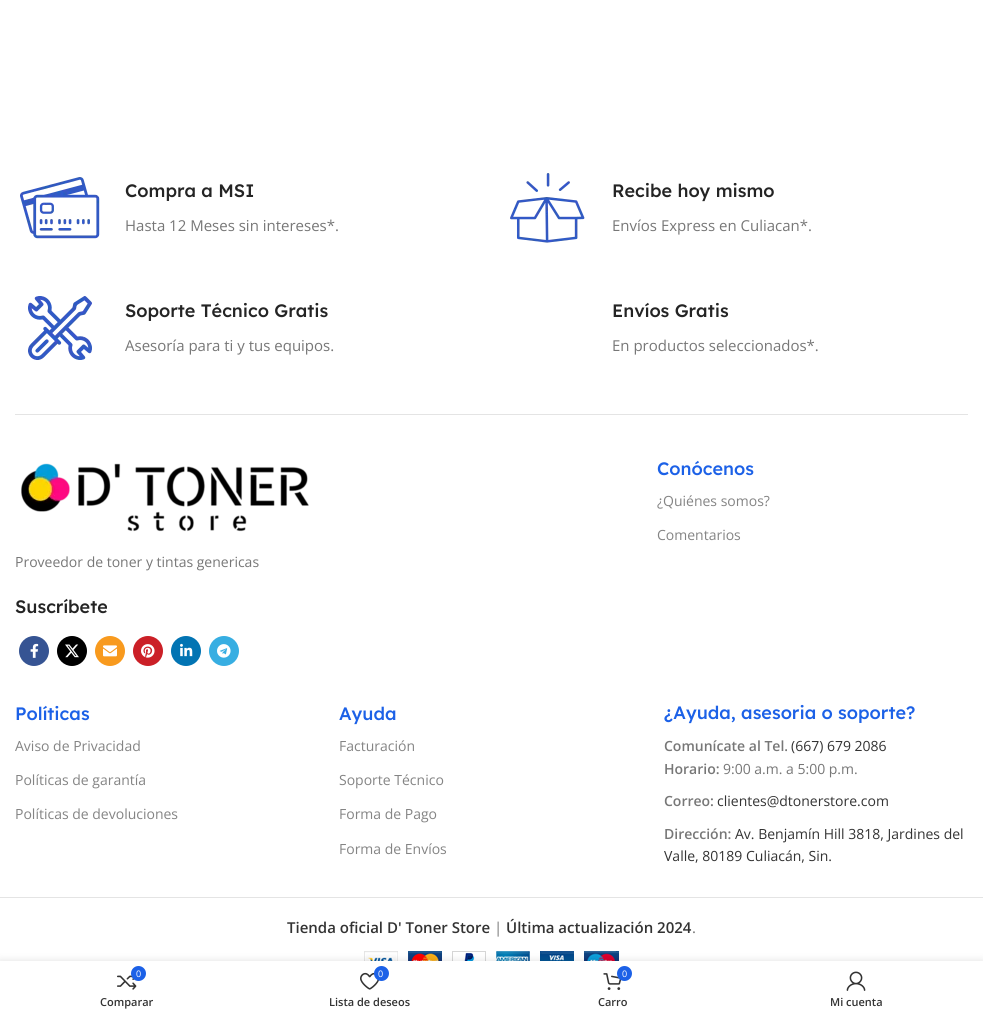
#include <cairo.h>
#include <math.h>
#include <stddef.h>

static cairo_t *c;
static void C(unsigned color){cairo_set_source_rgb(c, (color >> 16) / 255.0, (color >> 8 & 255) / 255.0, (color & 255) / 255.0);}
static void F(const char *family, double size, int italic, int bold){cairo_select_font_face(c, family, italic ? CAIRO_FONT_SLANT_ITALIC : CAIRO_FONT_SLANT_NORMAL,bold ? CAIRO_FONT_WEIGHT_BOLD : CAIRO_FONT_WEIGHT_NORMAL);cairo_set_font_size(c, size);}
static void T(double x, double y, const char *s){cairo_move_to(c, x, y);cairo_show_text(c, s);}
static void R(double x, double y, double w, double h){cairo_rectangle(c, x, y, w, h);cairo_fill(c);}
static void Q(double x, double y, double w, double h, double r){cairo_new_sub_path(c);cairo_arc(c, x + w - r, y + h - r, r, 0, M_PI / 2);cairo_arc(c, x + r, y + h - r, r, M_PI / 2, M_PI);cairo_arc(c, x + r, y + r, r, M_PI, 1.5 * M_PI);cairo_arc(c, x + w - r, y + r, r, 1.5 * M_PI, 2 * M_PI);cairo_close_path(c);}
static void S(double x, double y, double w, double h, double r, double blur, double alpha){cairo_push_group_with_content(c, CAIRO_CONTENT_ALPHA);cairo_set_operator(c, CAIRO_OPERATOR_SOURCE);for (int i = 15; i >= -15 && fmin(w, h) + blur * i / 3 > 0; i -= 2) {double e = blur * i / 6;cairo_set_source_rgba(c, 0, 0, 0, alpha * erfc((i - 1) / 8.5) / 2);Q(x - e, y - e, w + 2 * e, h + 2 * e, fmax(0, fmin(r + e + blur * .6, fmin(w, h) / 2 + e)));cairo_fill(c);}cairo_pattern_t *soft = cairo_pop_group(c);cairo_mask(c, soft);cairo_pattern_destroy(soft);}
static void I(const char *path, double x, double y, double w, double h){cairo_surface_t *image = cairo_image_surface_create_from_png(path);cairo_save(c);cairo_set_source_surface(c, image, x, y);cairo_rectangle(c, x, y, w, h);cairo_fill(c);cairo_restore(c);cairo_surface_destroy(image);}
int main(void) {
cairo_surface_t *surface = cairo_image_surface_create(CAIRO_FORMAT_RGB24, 983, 1016);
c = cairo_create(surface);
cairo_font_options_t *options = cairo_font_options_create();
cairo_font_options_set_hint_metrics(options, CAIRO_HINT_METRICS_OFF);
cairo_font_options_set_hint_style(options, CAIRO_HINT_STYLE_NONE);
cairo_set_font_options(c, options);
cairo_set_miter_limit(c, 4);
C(0xffffff);
cairo_paint(c);
C(0xe4e4e4);
R(15,414,953,1);
I("1.png",20,177,80,62);
F("Lexend Deca Medium",18,0,0);
C(0x242424);
T(125,197,"Compra a MSI");
F("Open Sans",15,0,0);
C(0x777777);
T(125,231,"Hasta 12 Meses sin intereses*.");
I("2.png",510,173,75,70);
F("Lexend Deca Medium",18,0,0);
C(0x242424);
T(612,197,"Recibe hoy mismo");
F("Open Sans",15,0,0);
C(0x777777);
T(612,231,"Envíos Express en Culiacan*.");
I("3.png",28,296,64,64);
F("Lexend Deca Medium",18,0,0);
C(0x242424);
T(125,317,"Soporte Técnico Gratis");
F("Open Sans",15,0,0);
C(0x777777);
T(125,351,"Asesoría para ti y tus equipos.");
F("Lexend Deca Medium",18,0,0);
C(0x242424);
T(612,317,"Envíos Gratis");
F("Open Sans",15,0,0);
C(0x777777);
T(612,351,"En productos seleccionados*.");
F("Lexend Deca Medium",18,0,0);
C(0x1c61e7);
T(657,475,"Conócenos");
F("Open Sans",14,0,0);
C(0x848484);
T(657,506,"¿Quiénes somos?");
T(657,540,"Comentarios");
I("4.png",21,463,288,69);
C(0x777777);
T(15,567,"Proveedor de toner y tintas genericas");
F("Lexend Deca Medium",18,0,0);
C(0x242424);
T(15,613,"Suscríbete");
C(0x365493);
cairo_new_path(c);
cairo_arc(c,34,651,15,0,2 * M_PI);
cairo_fill(c);
I("5.png",30,643,9,15);
C(0x000000);
cairo_arc(c,72,651,15,0,2 * M_PI);
cairo_fill(c);
I("6.png",65,644,14,14);
C(0xf89a1e);
cairo_arc(c,110,651,15,0,2 * M_PI);
cairo_fill(c);
I("7.png",103,645,14,12);
C(0xcb2027);
cairo_arc(c,148,651,15,0,2 * M_PI);
cairo_fill(c);
I("8.png",141,644,14,14);
C(0x0274b3);
cairo_arc(c,186,651,15,0,2 * M_PI);
cairo_fill(c);
I("9.png",180,643,13,14);
C(0x37aee2);
cairo_arc(c,224,651,15,0,2 * M_PI);
cairo_fill(c);
I("10.png",217,644,14,14);
C(0x1c61e7);
T(15,720,"Políticas");
F("Open Sans",14,0,0);
C(0x848484);
T(15,751,"Aviso de Privacidad");
T(15,785,"Políticas de garantía");
T(15,819,"Políticas de devoluciones");
F("Lexend Deca Medium",18,0,0);
C(0x1c61e7);
T(339,720,"Ayuda");
F("Open Sans",14,0,0);
C(0x848484);
T(339,751,"Facturación");
T(339,785,"Soporte Técnico");
T(339,819,"Forma de Pago");
T(339,854,"Forma de Envíos");
F("Lexend Deca Medium",18,0,0);
C(0x1c61e7);
T(664,719,"¿Ayuda, asesoria o soporte?");
F("Open Sans SemiBold",14,0,0);
C(0x777777);
T(664,751,"Comunícate al Tel.");
F("Open Sans",14,0,0);
C(0x333333);
T(791,751,"(667) 679 2086");
F("Open Sans SemiBold",14,0,0);
C(0x777777);
T(664,774,"Horario:");
F("Open Sans",14,0,0);
T(723,774,"9:00 a.m. a 5:00 p.m.");
F("Open Sans SemiBold",14,0,0);
T(664,806,"Correo:");
F("Open Sans",14,0,0);
C(0x333333);
T(717,806,"clientes@dtonerstore.com");
F("Open Sans SemiBold",14,0,0);
C(0x777777);
T(664,839,"Dirección:");
F("Open Sans",14,0,0);
C(0x333333);
T(735,839,"Av. Benjamín Hill 3818, Jardines del");
T(664,861,"Valle, 80189 Culiacán, Sin.");
C(0xe4e4e4);
R(0,897,983,1);
F("Open Sans SemiBold",15,0,0);
C(0x333333);
T(287,933,"Tienda oficial D' Toner Store");
F("Open Sans",15,0,0);
C(0x777777);
T(494,933,"|");
F("Open Sans SemiBold",15,0,0);
C(0x333333);
T(506,933,"Última actualización 2024");
F("Open Sans",15,0,0);
C(0x777777);
T(692,933,".");
I("11.png",364,951,255,10);
C(0x000000);
S(0,961,983,55,0,4.5,.12);
C(0xffffff);
R(0,961,983,55);
I("12.png",117,975,20,15);
C(0x1c61e7);
cairo_arc(c,138.5,973.5,7.5,0,2 * M_PI);
cairo_fill(c);
F("Open Sans",9,0,0);
C(0xffffff);
T(136,977,"0");
F("Open Sans SemiBold",11,0,0);
C(0x333333);
T(100,1006,"Comparar");
I("13.png",360,972,20,18);
C(0x1c61e7);
cairo_arc(c,381.5,973.5,7.5,0,2 * M_PI);
cairo_fill(c);
F("Open Sans",9,0,0);
C(0xffffff);
T(378,977,"0");
F("Open Sans SemiBold",11,0,0);
C(0x333333);
T(329,1006,"Lista de deseos");
I("14.png",603,973,19,17);
C(0x1c61e7);
cairo_arc(c,624.5,973.5,7.5,0,2 * M_PI);
cairo_fill(c);
F("Open Sans",9,0,0);
C(0xffffff);
T(622,977,"0");
F("Open Sans SemiBold",11,0,0);
C(0x333333);
T(598,1006,"Carro");
I("15.png",846,971,20,20);
T(830,1006,"Mi cuenta");
cairo_surface_write_to_png(surface, "o.png");
cairo_font_options_destroy(options);
cairo_destroy(c);
cairo_surface_destroy(surface);
return 0;
}
